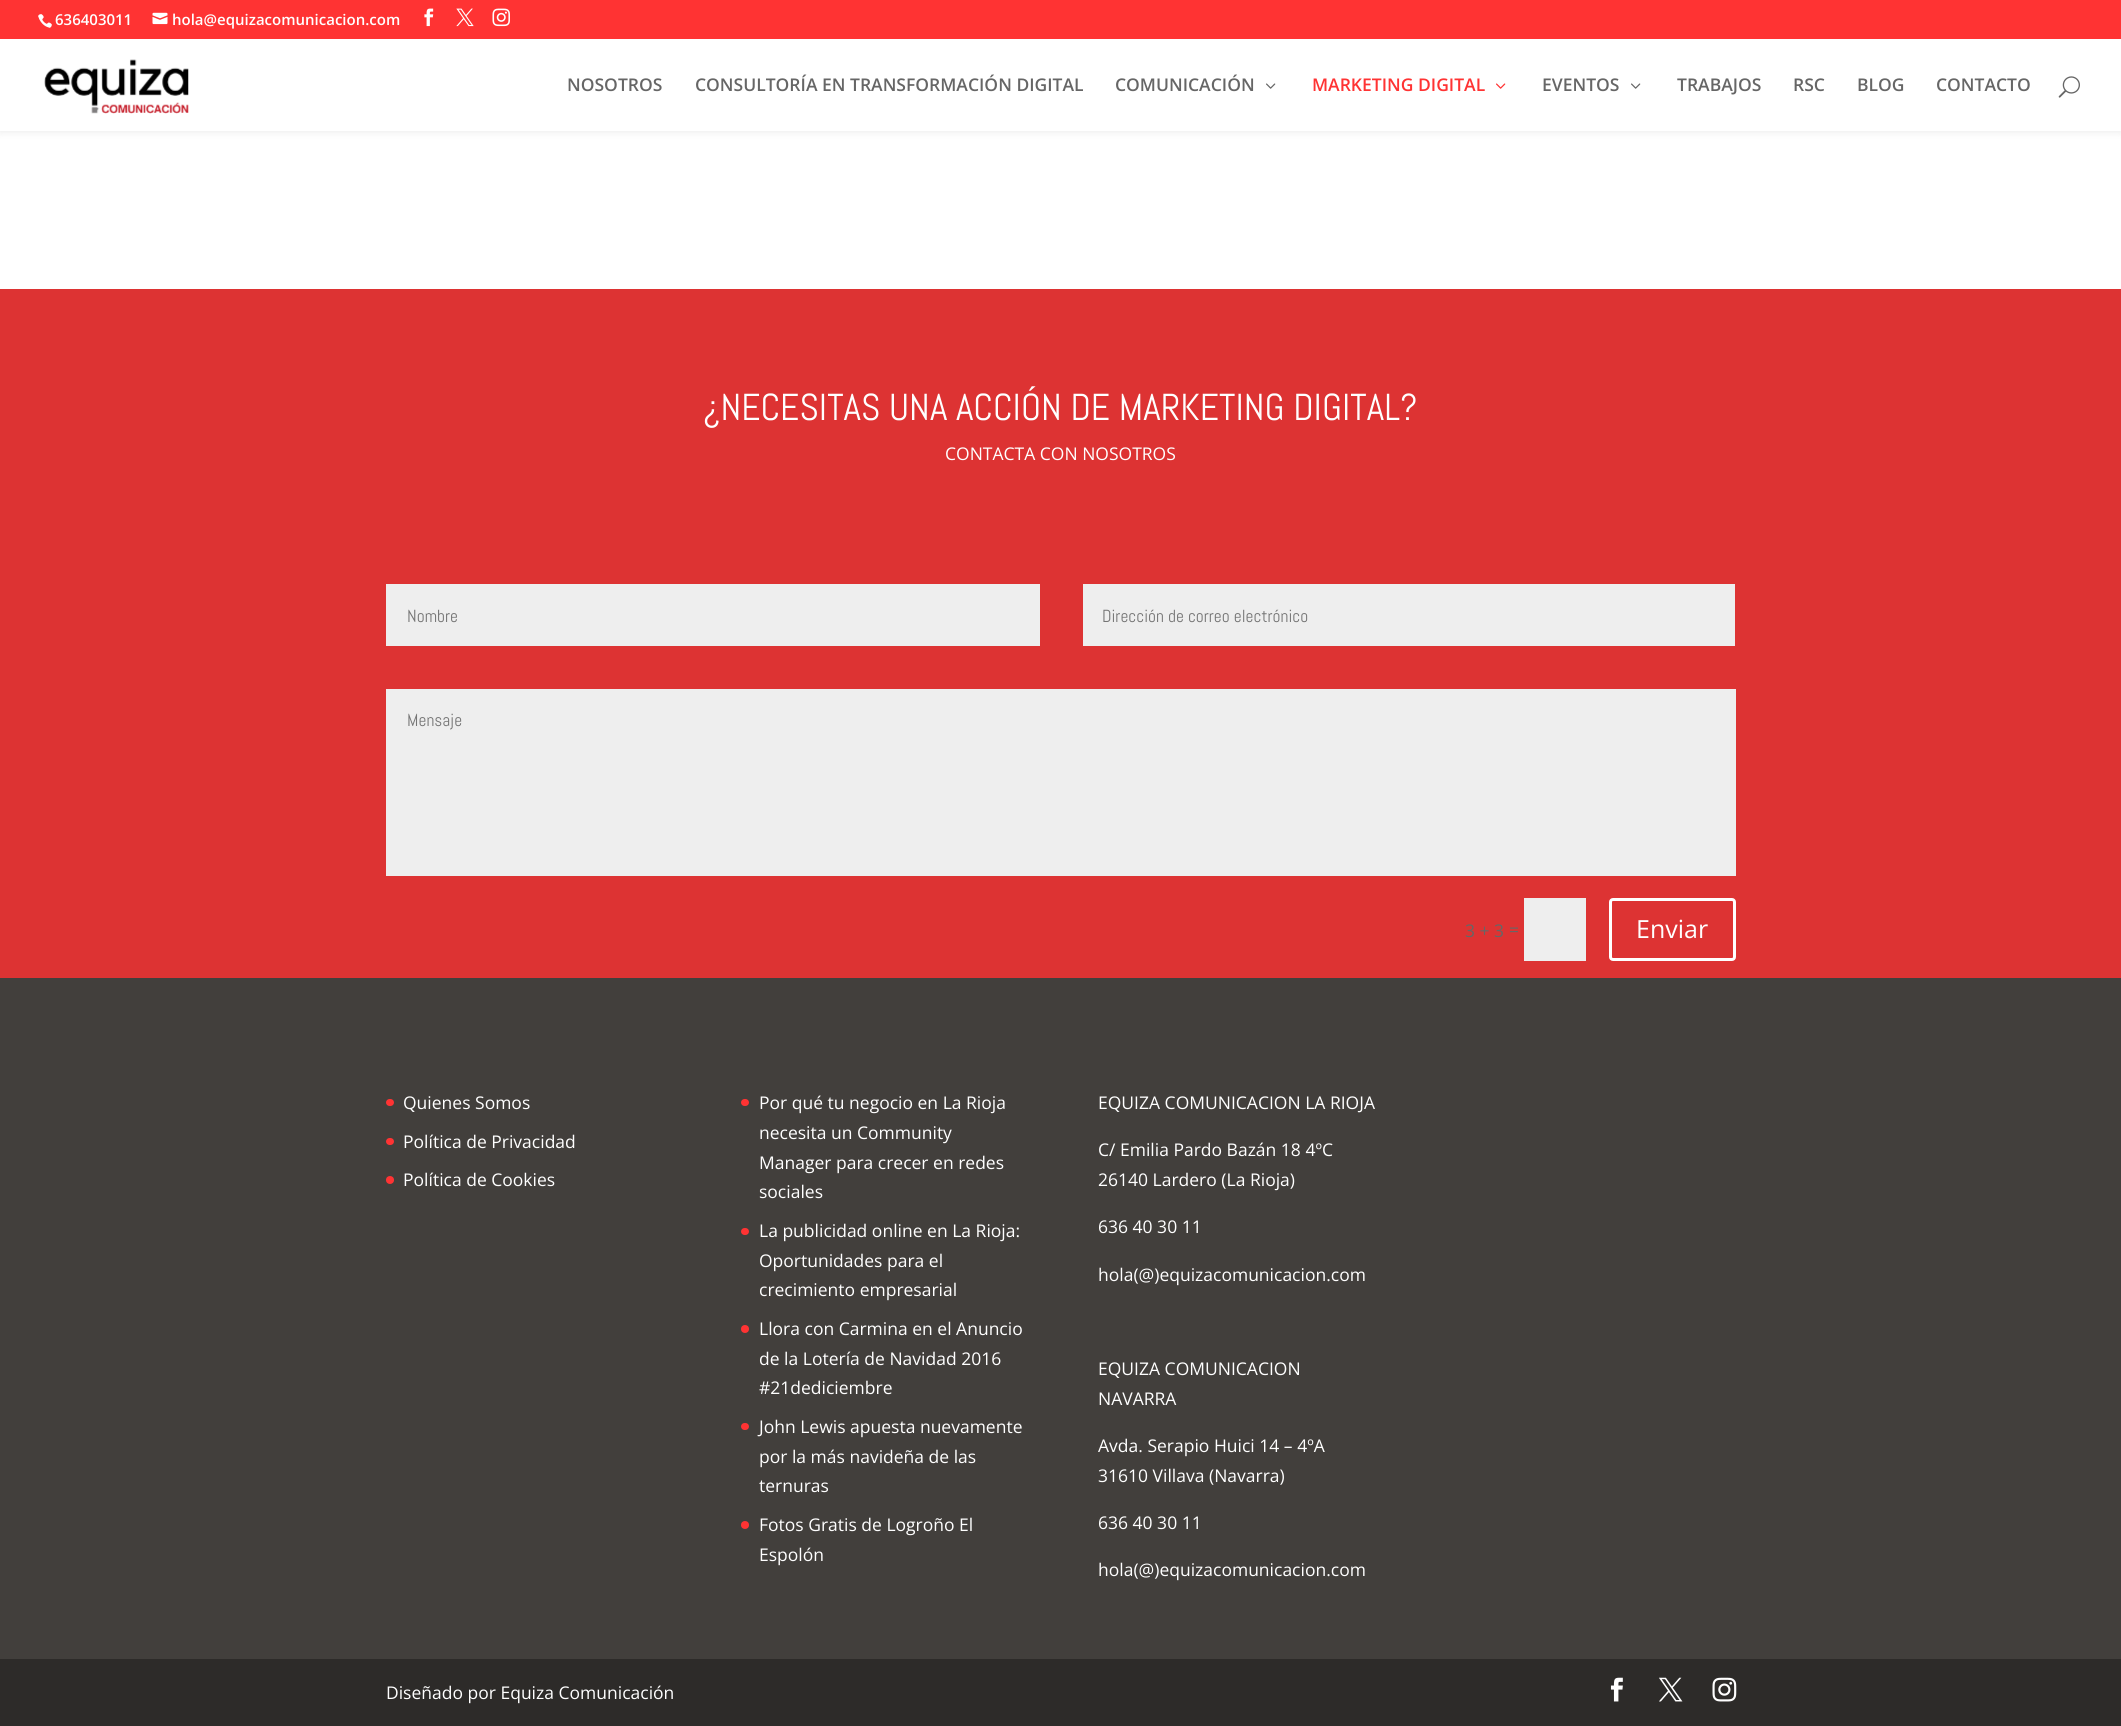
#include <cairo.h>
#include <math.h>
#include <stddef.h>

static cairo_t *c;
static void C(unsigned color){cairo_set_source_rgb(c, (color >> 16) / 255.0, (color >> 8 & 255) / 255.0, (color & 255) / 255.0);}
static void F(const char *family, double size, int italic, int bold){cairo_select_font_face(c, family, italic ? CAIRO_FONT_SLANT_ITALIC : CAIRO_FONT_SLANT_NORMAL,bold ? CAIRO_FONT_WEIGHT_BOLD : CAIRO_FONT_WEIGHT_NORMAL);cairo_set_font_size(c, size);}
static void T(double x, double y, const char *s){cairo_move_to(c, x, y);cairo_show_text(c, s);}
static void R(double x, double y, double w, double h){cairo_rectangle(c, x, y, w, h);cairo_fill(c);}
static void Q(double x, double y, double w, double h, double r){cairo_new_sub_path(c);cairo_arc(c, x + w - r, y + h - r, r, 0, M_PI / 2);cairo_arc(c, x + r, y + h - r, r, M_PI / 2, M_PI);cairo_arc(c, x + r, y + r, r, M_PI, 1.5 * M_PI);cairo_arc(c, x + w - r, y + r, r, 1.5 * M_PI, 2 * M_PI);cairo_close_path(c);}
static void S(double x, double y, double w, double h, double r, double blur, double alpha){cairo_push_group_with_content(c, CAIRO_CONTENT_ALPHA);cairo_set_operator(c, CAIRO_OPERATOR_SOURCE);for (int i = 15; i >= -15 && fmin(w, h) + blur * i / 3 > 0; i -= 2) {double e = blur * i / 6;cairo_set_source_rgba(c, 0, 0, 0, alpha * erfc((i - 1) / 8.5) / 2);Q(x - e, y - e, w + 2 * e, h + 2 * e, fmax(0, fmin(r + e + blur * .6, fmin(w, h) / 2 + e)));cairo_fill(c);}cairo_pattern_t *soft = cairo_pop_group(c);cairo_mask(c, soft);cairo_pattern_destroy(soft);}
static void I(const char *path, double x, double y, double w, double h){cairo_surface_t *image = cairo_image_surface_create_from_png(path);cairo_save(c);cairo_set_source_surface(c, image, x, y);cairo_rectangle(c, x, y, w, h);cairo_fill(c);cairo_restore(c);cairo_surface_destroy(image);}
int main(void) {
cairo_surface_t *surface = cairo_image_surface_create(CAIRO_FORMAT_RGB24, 2121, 1726);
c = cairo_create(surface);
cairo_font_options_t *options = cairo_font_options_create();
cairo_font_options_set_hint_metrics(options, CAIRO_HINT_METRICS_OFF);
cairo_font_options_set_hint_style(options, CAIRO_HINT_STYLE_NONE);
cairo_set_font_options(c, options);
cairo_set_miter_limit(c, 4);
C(0xffffff);
cairo_paint(c);
C(0x000000);
S(0,39,2121,92,0,4.5,.1);
C(0xff3333);
R(0,0,2121,39);
I("1.png",38,14,14,14);
F("Open Sans SemiBold",15,0,0);
C(0xffffff);
T(55,25,"636403011");
I("2.png",152,12,16,13);
T(172,25,"hola@equizacomunicacion.com");
I("3.png",424,8,10,19);
I("4.png",456,8,18,19);
I("5.png",492,8,18,19);
R(0,39,2121,92);
I("6.png",44,59,145,55);
F("Open Sans SemiBold",17.5,0,0);
C(0x666666);
T(567,91,"NOSOTROS");
T(695,91,"CONSULTORÍA EN TRANSFORMACIÓN DIGITAL");
T(1115,91,"COMUNICACIÓN");
I("7.png",1266,83,10,6);
C(0xff3333);
T(1312,91,"MARKETING DIGITAL");
I("8.png",1496,83,10,6);
C(0x666666);
T(1542,91,"EVENTOS");
I("7.png",1631,83,10,6);
T(1677,91,"TRABAJOS");
T(1793,91,"RSC");
T(1857,91,"BLOG");
T(1936,91,"CONTACTO");
I("9.png",2058,76,22,22);
C(0xdd3333);
R(0,289,2121,689);
F("Abel",37.5,0,0);
C(0xffffff);
T(703,420,"¿NECESITAS UNA ACCIÓN DE MARKETING DIGITAL?");
F("Open Sans",17.5,0,0);
T(945,460,"CONTACTA CON NOSOTROS");
C(0xeeeeee);
R(386,584,654,62);
F("Abel",17.5,0,0);
C(0x757575);
T(407,622,"Nombre");
C(0xeeeeee);
R(1083,584,652,62);
C(0x757575);
T(1102,622,"Dirección de correo electrónico");
C(0xeeeeee);
R(386,689,1350,187);
C(0x757575);
T(407,726,"Mensaje");
F("Open Sans",17.5,0,0);
C(0x666666);
T(1465,937,"3 + 3");
T(1509,936,"=");
C(0xeeeeee);
R(1524,898,62,63);
Q(1610.5,899.5,124,60,2.5);
C(0xffffff);
cairo_set_line_width(c,3);
cairo_stroke(c);
F("Open Sans",25,0,0);
T(1636,938,"Enviar");
C(0x423f3c);
R(0,978,2121,681);
C(0xff3333);
Q(386,1099,8,7,3.5);
cairo_fill(c);
F("Open Sans",17.5,0,0);
C(0xffffff);
T(403,1109,"Quienes Somos");
C(0xff3333);
Q(386,1138,8,7,3.5);
cairo_fill(c);
C(0xffffff);
T(403,1148,"Política de Privacidad");
C(0xff3333);
cairo_new_path(c);
cairo_arc(c,390,1180,4,0,2 * M_PI);
cairo_fill(c);
C(0xffffff);
T(403,1186,"Política de Cookies");
C(0xff3333);
Q(741,1099,8,7,3.5);
cairo_fill(c);
C(0xffffff);
T(759,1109,"Por qué tu negocio en La Rioja");
T(759,1139,"necesita un Community");
T(759,1169,"Manager para crecer en redes");
T(759,1198,"sociales");
C(0xff3333);
Q(741,1228,8,7,3.5);
cairo_fill(c);
C(0xffffff);
T(759,1237,"La publicidad online en La Rioja:");
T(759,1267,"Oportunidades para el");
T(759,1296,"crecimiento empresarial");
C(0xff3333);
cairo_new_path(c);
cairo_arc(c,745,1329,4,0,2 * M_PI);
cairo_fill(c);
C(0xffffff);
T(759,1335,"Llora con Carmina en el Anuncio");
T(759,1365,"de la Lotería de Navidad 2016");
T(759,1394,"#21dediciembre");
C(0xff3333);
Q(741,1423,8,7,3.5);
cairo_fill(c);
C(0xffffff);
T(759,1433,"John Lewis apuesta nuevamente");
T(759,1463,"por la más navideña de las");
T(759,1492,"ternuras");
C(0xff3333);
cairo_new_path(c);
cairo_arc(c,745,1525,4,0,2 * M_PI);
cairo_fill(c);
C(0xffffff);
T(759,1531,"Fotos Gratis de Logroño El");
T(759,1561,"Espolón");
T(1098,1109,"EQUIZA COMUNICACION LA RIOJA");
T(1098,1156,"C/ Emilia Pardo Bazán 18 4ºC");
T(1098,1186,"26140 Lardero (La Rioja)");
T(1098,1233,"636 40 30 11");
T(1098,1281,"hola(@)equizacomunicacion.com");
T(1098,1375,"EQUIZA COMUNICACION");
T(1098,1405,"NAVARRA");
T(1098,1452,"Avda. Serapio Huici 14 – 4ºA");
T(1098,1482,"31610 Villava (Navarra)");
T(1098,1529,"636 40 30 11");
T(1098,1576,"hola(@)equizacomunicacion.com");
C(0x2d2b29);
R(0,1659,2121,67);
C(0xffffff);
T(386,1699,"Diseñado por Equiza Comunicación");
I("10.png",1610,1677,13,25);
I("11.png",1659,1677,24,25);
I("12.png",1712,1677,25,25);
cairo_surface_write_to_png(surface, "o.png");
cairo_font_options_destroy(options);
cairo_destroy(c);
cairo_surface_destroy(surface);
return 0;
}
